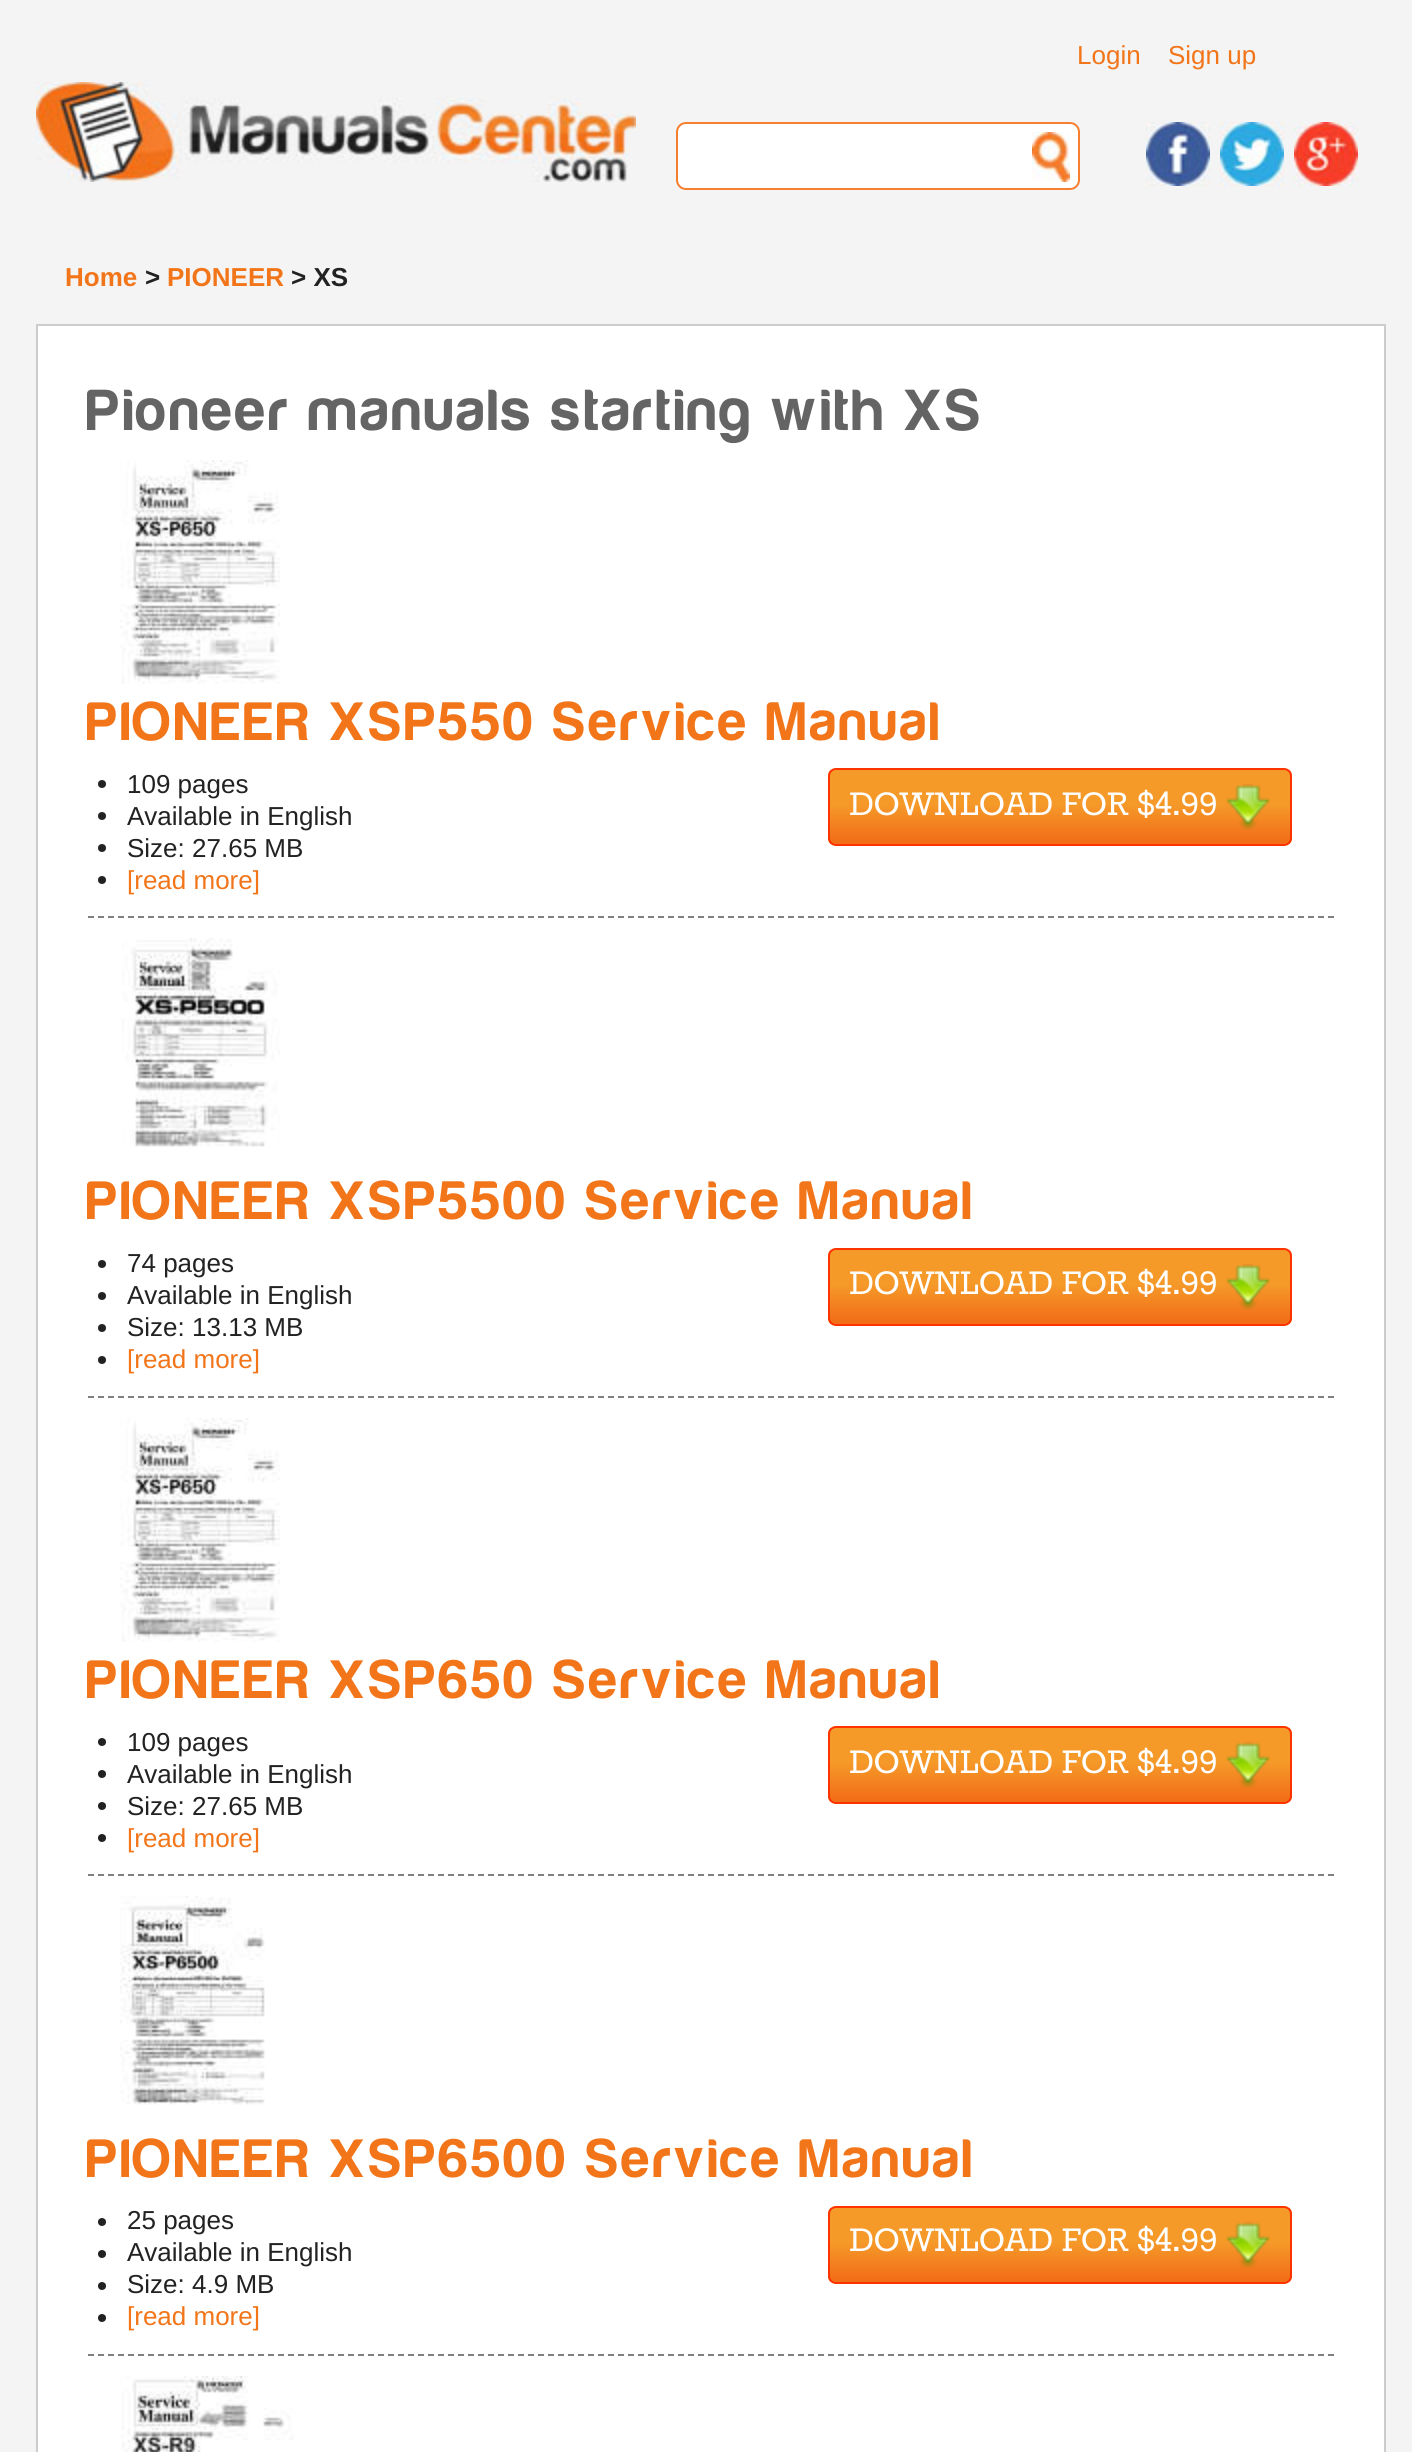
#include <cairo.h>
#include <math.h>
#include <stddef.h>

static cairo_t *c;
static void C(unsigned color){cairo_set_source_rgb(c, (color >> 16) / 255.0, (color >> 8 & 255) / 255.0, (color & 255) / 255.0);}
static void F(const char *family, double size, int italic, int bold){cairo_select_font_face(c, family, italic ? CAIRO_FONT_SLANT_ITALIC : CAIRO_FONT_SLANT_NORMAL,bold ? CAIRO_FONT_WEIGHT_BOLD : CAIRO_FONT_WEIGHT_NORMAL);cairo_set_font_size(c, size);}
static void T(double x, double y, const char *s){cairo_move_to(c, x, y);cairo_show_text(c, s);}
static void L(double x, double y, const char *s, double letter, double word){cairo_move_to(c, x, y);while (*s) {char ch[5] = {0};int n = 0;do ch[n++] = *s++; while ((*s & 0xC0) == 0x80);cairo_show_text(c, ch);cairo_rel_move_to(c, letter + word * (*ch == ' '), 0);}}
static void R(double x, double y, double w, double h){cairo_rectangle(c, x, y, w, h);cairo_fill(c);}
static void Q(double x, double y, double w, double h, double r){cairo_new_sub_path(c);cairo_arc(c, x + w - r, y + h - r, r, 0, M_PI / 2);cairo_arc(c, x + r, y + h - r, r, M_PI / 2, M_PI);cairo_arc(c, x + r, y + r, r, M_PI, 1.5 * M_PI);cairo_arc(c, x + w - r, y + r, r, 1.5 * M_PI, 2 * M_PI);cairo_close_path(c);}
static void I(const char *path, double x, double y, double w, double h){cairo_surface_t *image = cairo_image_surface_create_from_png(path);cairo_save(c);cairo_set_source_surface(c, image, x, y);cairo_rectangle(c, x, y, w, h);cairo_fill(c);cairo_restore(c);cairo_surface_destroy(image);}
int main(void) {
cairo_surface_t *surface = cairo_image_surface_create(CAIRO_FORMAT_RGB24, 1412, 2452);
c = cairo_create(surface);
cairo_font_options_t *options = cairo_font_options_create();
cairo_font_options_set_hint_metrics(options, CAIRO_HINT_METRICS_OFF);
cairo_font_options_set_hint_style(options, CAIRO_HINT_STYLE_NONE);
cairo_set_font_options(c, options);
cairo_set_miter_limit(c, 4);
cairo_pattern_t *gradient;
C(0xf4f4f4);
cairo_paint(c);
F("Liberation Sans",26,0,0);
C(0xf2751a);
T(1077,64,"Login");
T(1168,64,"Sign up");
I("1.png",36,82,600,100);
C(0xffffff);
Q(676,122,404,68,10);
cairo_fill(c);
I("2.png",1032,132,38,50);
Q(677,123,402,66,9);
C(0xf77e2d);
cairo_stroke(c);
I("3.png",1146,122,64,64);
I("4.png",1220,122,64,64);
I("5.png",1294,122,64,64);
F("Liberation Sans",26,0,1);
C(0xf2751a);
T(65,286,"Home");
C(0x222222);
T(145,286,">");
C(0xf2751a);
T(167,286,"PIONEER");
C(0x222222);
T(291,286,"> XS");
C(0xffffff);
cairo_rectangle(c,37,325,1348,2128);
cairo_fill_preserve(c);
C(0xcccccc);
cairo_stroke(c);
F("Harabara",60,0,1);
C(0x646465);
L(87,430,"Pioneer manuals starting with XS",4,0);
cairo_new_path(c);
cairo_move_to(c,88,917);
cairo_line_to(c,1334,917);
C(0x808080);
cairo_set_dash(c,(double[]){6,4},2,0);
cairo_stroke(c);
I("6.png",120,460,160,224);
F("Harabara",56,0,1);
C(0xf2751a);
L(87,740,"PIONEER XSP550 Service Manual",4,0);
C(0x222222);
cairo_new_path(c);
cairo_arc(c,102,784,4,0,2 * M_PI);
cairo_fill(c);
F("Liberation Sans",26,0,0);
T(127,793,"109 pages");
cairo_new_path(c);
cairo_arc(c,102,816,4,0,2 * M_PI);
cairo_fill(c);
T(127,825,"Available in English");
cairo_new_path(c);
cairo_arc(c,102,848,4,0,2 * M_PI);
cairo_fill(c);
T(127,857,"Size: 27.65 MB");
cairo_new_path(c);
cairo_arc(c,102,880,4,0,2 * M_PI);
cairo_fill(c);
C(0xf2751a);
T(127,889,"[read more]");
cairo_save(c);
Q(828,768,464,78,8);
cairo_clip(c);
gradient = cairo_pattern_create_linear(830,844,830,770);
cairo_pattern_add_color_stop_rgba(gradient,.05,0.949,0.435,0.094,1);
cairo_pattern_add_color_stop_rgba(gradient,.53,0.961,0.6,0.161,1);
cairo_pattern_add_color_stop_rgba(gradient,.77,0.961,0.6,0.161,1);
cairo_set_source(c,gradient);
cairo_pattern_destroy(gradient);
R(828,770,464,74);
cairo_restore(c);
Q(829,769,462,76,7);
C(0xff3300);
cairo_set_dash(c,NULL,0,0);
cairo_stroke(c);
F("Rokkitt",40,0,0);
C(0xffffff);
T(849,815,"DOWNLOAD FOR $4.99");
I("7.png",1226,784,44,46);
cairo_new_path(c);
cairo_move_to(c,88,1397);
cairo_line_to(c,1334,1397);
C(0x808080);
cairo_set_dash(c,(double[]){6,4},2,0);
cairo_stroke(c);
I("8.png",122,938,158,209);
F("Harabara",56,0,1);
C(0xf2751a);
L(87,1219,"PIONEER XSP5500 Service Manual",4,0);
C(0x222222);
cairo_new_path(c);
cairo_arc(c,102,1264,4,0,2 * M_PI);
cairo_fill(c);
F("Liberation Sans",26,0,0);
T(127,1272,"74 pages");
cairo_new_path(c);
cairo_arc(c,102,1296,4,0,2 * M_PI);
cairo_fill(c);
T(127,1304,"Available in English");
cairo_new_path(c);
cairo_arc(c,102,1328,4,0,2 * M_PI);
cairo_fill(c);
T(127,1336,"Size: 13.13 MB");
cairo_new_path(c);
cairo_arc(c,102,1360,4,0,2 * M_PI);
cairo_fill(c);
C(0xf2751a);
T(127,1368,"[read more]");
cairo_save(c);
Q(828,1248,464,78,8);
cairo_clip(c);
gradient = cairo_pattern_create_linear(830,1324,830,1250);
cairo_pattern_add_color_stop_rgba(gradient,.05,0.949,0.435,0.094,1);
cairo_pattern_add_color_stop_rgba(gradient,.53,0.961,0.6,0.161,1);
cairo_pattern_add_color_stop_rgba(gradient,.77,0.961,0.6,0.161,1);
cairo_set_source(c,gradient);
cairo_pattern_destroy(gradient);
R(828,1250,464,74);
cairo_restore(c);
Q(829,1249,462,76,7);
C(0xff3300);
cairo_set_dash(c,NULL,0,0);
cairo_stroke(c);
F("Rokkitt",40,0,0);
C(0xffffff);
T(849,1294,"DOWNLOAD FOR $4.99");
I("7.png",1226,1264,44,46);
cairo_new_path(c);
cairo_move_to(c,88,1875);
cairo_line_to(c,1334,1875);
C(0x808080);
cairo_set_dash(c,(double[]){6,4},2,0);
cairo_stroke(c);
I("6.png",120,1418,160,224);
F("Harabara",56,0,1);
C(0xf2751a);
L(87,1698,"PIONEER XSP650 Service Manual",4,0);
C(0x222222);
cairo_new_path(c);
cairo_arc(c,102,1742,4,0,2 * M_PI);
cairo_fill(c);
F("Liberation Sans",26,0,0);
T(127,1751,"109 pages");
cairo_new_path(c);
cairo_arc(c,102,1774,4,0,2 * M_PI);
cairo_fill(c);
T(127,1783,"Available in English");
cairo_new_path(c);
cairo_arc(c,102,1806,4,0,2 * M_PI);
cairo_fill(c);
T(127,1815,"Size: 27.65 MB");
cairo_new_path(c);
cairo_arc(c,102,1838,4,0,2 * M_PI);
cairo_fill(c);
C(0xf2751a);
T(127,1847,"[read more]");
cairo_save(c);
Q(828,1726,464,78,8);
cairo_clip(c);
gradient = cairo_pattern_create_linear(830,1802,830,1728);
cairo_pattern_add_color_stop_rgba(gradient,.05,0.949,0.435,0.094,1);
cairo_pattern_add_color_stop_rgba(gradient,.53,0.961,0.6,0.161,1);
cairo_pattern_add_color_stop_rgba(gradient,.77,0.961,0.6,0.161,1);
cairo_set_source(c,gradient);
cairo_pattern_destroy(gradient);
R(828,1728,464,74);
cairo_restore(c);
Q(829,1727,462,76,7);
C(0xff3300);
cairo_set_dash(c,NULL,0,0);
cairo_stroke(c);
F("Rokkitt",40,0,0);
C(0xffffff);
T(849,1773,"DOWNLOAD FOR $4.99");
I("7.png",1226,1742,44,46);
cairo_new_path(c);
cairo_move_to(c,88,2355);
cairo_line_to(c,1334,2355);
C(0x808080);
cairo_set_dash(c,(double[]){6,4},2,0);
cairo_stroke(c);
I("9.png",120,1896,145,209);
F("Harabara",56,0,1);
C(0xf2751a);
L(87,2177,"PIONEER XSP6500 Service Manual",4,0);
C(0x222222);
cairo_new_path(c);
cairo_arc(c,102,2222,4,0,2 * M_PI);
cairo_fill(c);
F("Liberation Sans",26,0,0);
T(127,2229,"25 pages");
cairo_new_path(c);
cairo_arc(c,102,2254,4,0,2 * M_PI);
cairo_fill(c);
T(127,2261,"Available in English");
cairo_new_path(c);
cairo_arc(c,102,2286,4,0,2 * M_PI);
cairo_fill(c);
T(127,2293,"Size: 4.9 MB");
cairo_new_path(c);
cairo_arc(c,102,2318,4,0,2 * M_PI);
cairo_fill(c);
C(0xf2751a);
T(127,2325,"[read more]");
cairo_save(c);
Q(828,2206,464,78,8);
cairo_clip(c);
gradient = cairo_pattern_create_linear(830,2282,830,2208);
cairo_pattern_add_color_stop_rgba(gradient,.05,0.949,0.435,0.094,1);
cairo_pattern_add_color_stop_rgba(gradient,.53,0.961,0.6,0.161,1);
cairo_pattern_add_color_stop_rgba(gradient,.77,0.961,0.6,0.161,1);
cairo_set_source(c,gradient);
cairo_pattern_destroy(gradient);
R(828,2208,464,74);
cairo_restore(c);
Q(829,2207,462,76,7);
C(0xff3300);
cairo_set_dash(c,NULL,0,0);
cairo_stroke(c);
F("Rokkitt",40,0,0);
C(0xffffff);
T(849,2251,"DOWNLOAD FOR $4.99");
I("7.png",1226,2222,44,46);
I("10.png",121,2376,173,76);
cairo_surface_write_to_png(surface, "o.png");
cairo_font_options_destroy(options);
cairo_destroy(c);
cairo_surface_destroy(surface);
return 0;
}
